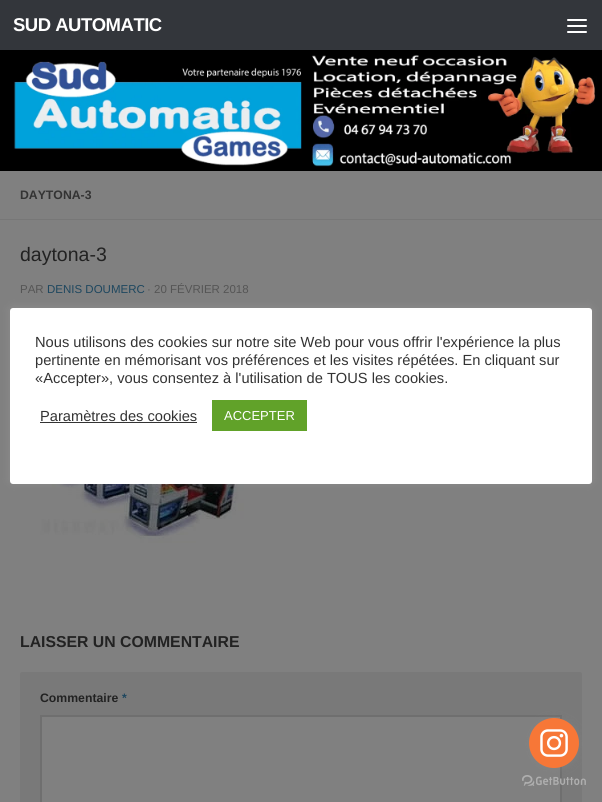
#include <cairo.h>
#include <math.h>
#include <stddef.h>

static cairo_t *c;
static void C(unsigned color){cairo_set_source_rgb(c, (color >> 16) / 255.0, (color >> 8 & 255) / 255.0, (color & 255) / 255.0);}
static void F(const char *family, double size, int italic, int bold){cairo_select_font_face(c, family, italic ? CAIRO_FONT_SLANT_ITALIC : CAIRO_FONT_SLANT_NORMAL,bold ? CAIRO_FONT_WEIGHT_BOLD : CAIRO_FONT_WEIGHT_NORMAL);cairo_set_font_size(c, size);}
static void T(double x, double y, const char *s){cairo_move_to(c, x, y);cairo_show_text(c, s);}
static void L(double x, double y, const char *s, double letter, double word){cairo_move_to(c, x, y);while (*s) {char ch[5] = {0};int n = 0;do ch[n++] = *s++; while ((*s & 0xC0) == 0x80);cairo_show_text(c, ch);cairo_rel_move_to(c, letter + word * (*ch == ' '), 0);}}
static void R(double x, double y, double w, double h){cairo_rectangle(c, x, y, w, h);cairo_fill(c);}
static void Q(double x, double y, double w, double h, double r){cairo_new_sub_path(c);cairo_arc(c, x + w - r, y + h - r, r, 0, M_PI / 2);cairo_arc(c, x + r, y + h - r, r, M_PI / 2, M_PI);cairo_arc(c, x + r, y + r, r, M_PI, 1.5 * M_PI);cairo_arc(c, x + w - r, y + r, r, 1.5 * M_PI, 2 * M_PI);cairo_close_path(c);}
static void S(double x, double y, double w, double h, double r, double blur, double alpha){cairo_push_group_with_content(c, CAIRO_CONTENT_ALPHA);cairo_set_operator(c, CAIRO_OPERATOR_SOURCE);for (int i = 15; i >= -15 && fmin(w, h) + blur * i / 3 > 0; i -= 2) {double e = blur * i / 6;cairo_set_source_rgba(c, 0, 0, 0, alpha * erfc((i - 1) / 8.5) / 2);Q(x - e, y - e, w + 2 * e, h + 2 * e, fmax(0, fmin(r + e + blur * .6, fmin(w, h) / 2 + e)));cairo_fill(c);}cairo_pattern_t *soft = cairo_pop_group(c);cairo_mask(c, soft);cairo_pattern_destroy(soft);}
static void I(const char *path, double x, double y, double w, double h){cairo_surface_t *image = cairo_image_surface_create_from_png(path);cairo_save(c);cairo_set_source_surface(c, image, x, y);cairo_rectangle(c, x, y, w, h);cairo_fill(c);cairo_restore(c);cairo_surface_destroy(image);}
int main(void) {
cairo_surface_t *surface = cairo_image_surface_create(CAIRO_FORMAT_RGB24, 602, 802);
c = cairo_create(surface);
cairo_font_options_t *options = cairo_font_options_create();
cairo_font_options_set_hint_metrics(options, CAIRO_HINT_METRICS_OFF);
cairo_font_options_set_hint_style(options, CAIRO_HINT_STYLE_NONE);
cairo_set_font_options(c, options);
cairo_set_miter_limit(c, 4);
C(0x808080);
cairo_paint(c);
C(0x33363b);
R(0,0,602,50);
F("Liberation Sans",18.5,0,1);
C(0xffffff);
L(13,31,"SUD AUTOMATIC",-.5,0);
Q(567,19,20,2,1);
cairo_fill(c);
Q(567,25,20,2,1);
cairo_fill(c);
Q(567,31,20,2,1);
cairo_fill(c);
I("1.png",0,50,602,121);
C(0x777777);
R(0,219,602,1);
F("Liberation Sans",12.25,0,1);
C(0x333333);
T(20,199,"DAYTONA-3");
F("Liberation Sans",19.5,0,0);
C(0x222222);
T(20,261,"daytona-3");
F("Liberation Sans",11.5,0,0);
C(0x555555);
T(20,293,"PAR");
C(0x1e475f);
T(47,293,"DENIS DOUMERC");
C(0x555555);
T(147,293,"· 20 FÉVRIER 2018");
I("2.png",28,484,223,59);
F("Liberation Sans",15.8,0,1);
C(0x222222);
T(20,647,"LAISSER UN COMMENTAIRE");
C(0x797979);
Q(20,672,562,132,2);
cairo_fill(c);
F("Liberation Sans",12.25,0,1);
C(0x222222);
T(40,702,"Commentaire");
C(0x1e475f);
T(122,702,"*");
C(0x808080);
cairo_rectangle(c,41,716,520,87);
cairo_fill_preserve(c);
C(0x6f6f6f);
cairo_stroke(c);
C(0xacabab);
S(10,307,582,176,3,5,.3);
C(0xffffff);
Q(10,308,582,176,3);
cairo_fill(c);
F("Liberation Sans",14.65,0,0);
C(0x333333);
T(35,347,"Nous utilisons des cookies sur notre site Web pour vous offrir l'expérience la plus");
T(35,365,"pertinente en mémorisant vos préférences et les visites répétées. En cliquant sur");
T(35,383,"«Accepter», vous consentez à l'utilisation de TOUS les cookies.");
T(40,421,"Paramètres des cookies");
R(40,422,157,1);
C(0x61a229);
R(212,400,95,31);
F("Liberation Sans",13,0,0);
C(0xffffff);
T(224,420,"ACCEPTER");
I("4.png",522,775,64,11);
C(0x888888);
S(529,719,50,50,25,3.5,.4);
C(0xf77737);
cairo_arc(c,554,743,25,0,2 * M_PI);
cairo_fill(c);
I("3.png",540,729,28,28);
cairo_surface_write_to_png(surface, "o.png");
cairo_font_options_destroy(options);
cairo_destroy(c);
cairo_surface_destroy(surface);
return 0;
}
